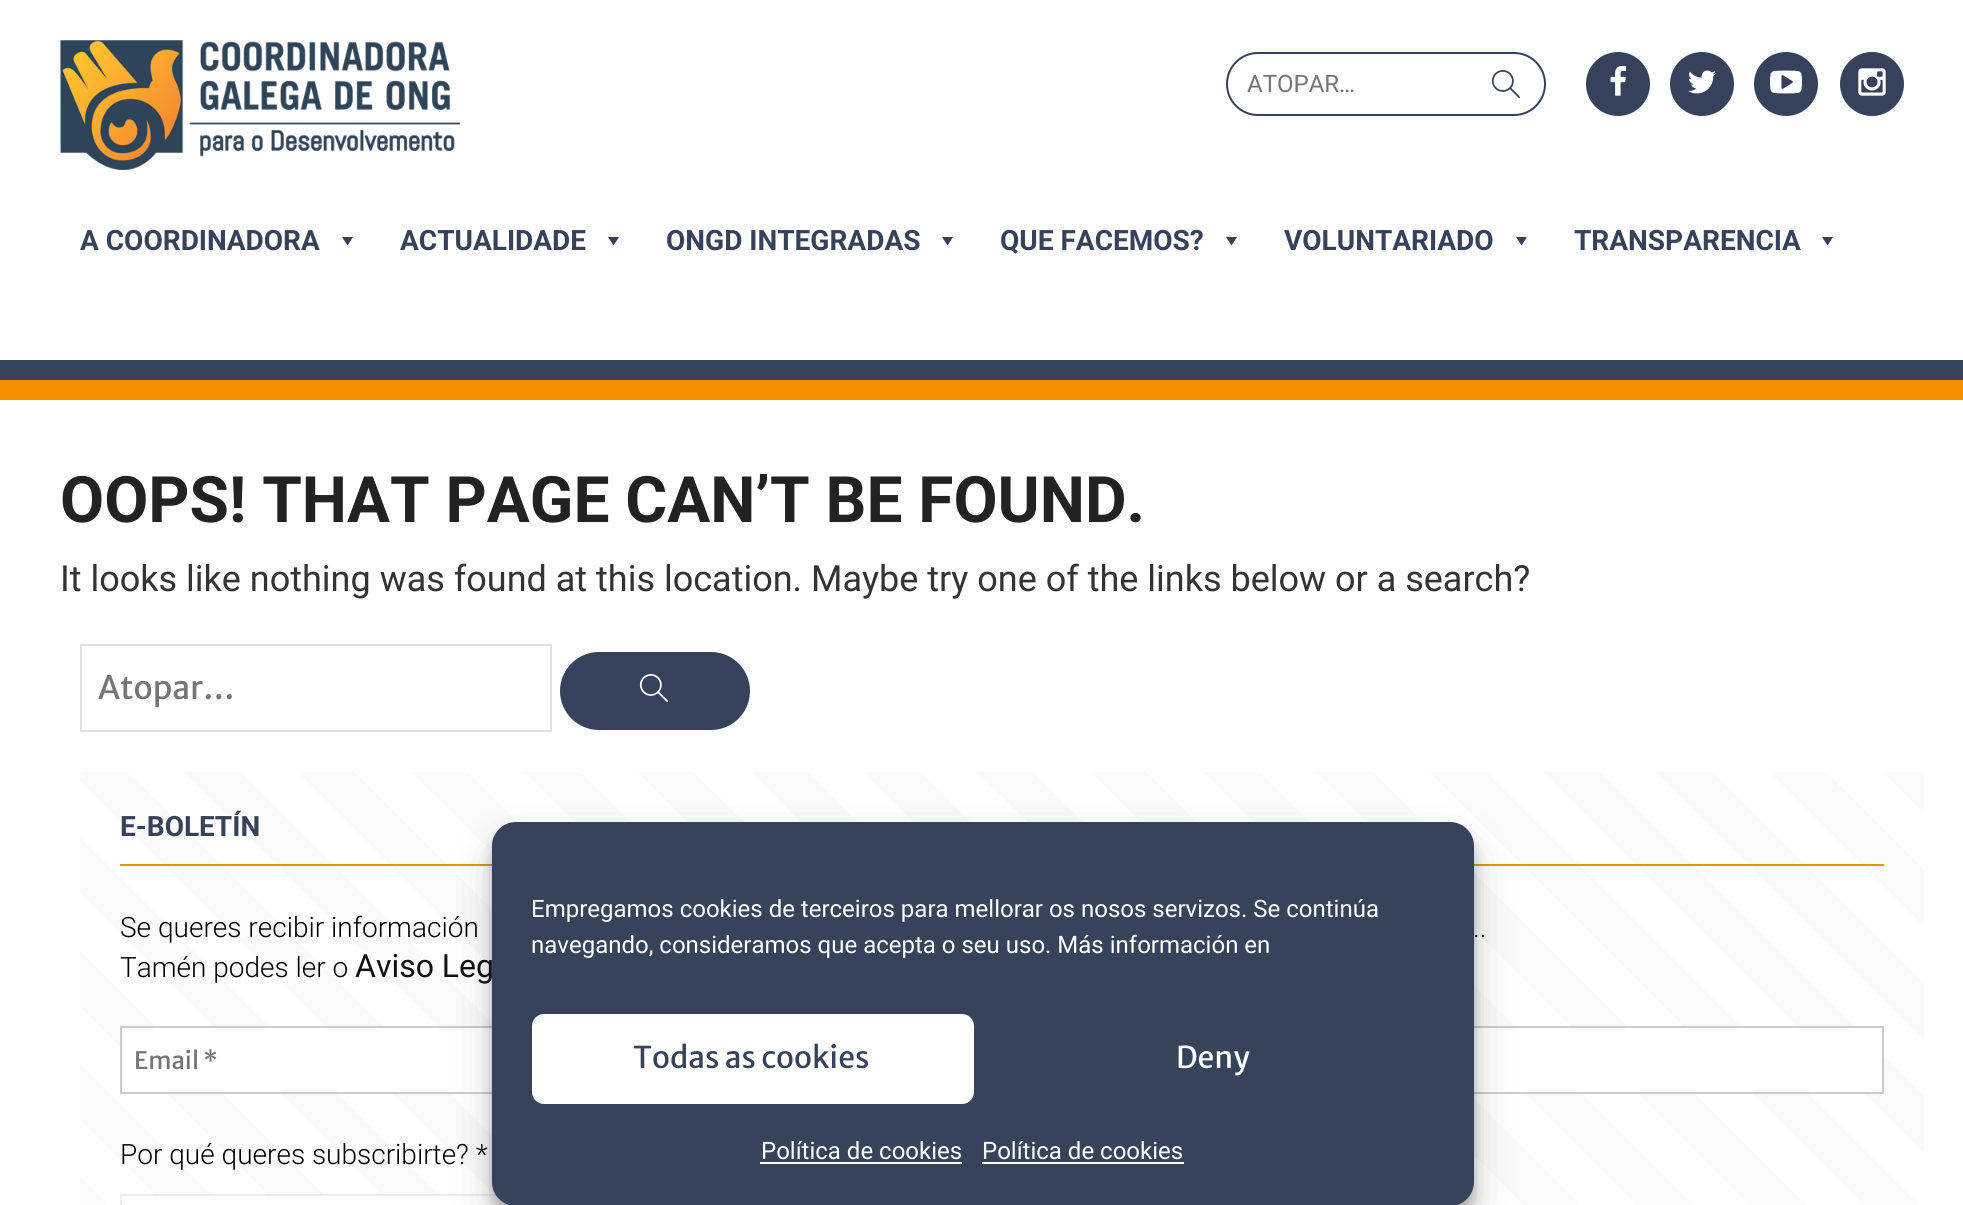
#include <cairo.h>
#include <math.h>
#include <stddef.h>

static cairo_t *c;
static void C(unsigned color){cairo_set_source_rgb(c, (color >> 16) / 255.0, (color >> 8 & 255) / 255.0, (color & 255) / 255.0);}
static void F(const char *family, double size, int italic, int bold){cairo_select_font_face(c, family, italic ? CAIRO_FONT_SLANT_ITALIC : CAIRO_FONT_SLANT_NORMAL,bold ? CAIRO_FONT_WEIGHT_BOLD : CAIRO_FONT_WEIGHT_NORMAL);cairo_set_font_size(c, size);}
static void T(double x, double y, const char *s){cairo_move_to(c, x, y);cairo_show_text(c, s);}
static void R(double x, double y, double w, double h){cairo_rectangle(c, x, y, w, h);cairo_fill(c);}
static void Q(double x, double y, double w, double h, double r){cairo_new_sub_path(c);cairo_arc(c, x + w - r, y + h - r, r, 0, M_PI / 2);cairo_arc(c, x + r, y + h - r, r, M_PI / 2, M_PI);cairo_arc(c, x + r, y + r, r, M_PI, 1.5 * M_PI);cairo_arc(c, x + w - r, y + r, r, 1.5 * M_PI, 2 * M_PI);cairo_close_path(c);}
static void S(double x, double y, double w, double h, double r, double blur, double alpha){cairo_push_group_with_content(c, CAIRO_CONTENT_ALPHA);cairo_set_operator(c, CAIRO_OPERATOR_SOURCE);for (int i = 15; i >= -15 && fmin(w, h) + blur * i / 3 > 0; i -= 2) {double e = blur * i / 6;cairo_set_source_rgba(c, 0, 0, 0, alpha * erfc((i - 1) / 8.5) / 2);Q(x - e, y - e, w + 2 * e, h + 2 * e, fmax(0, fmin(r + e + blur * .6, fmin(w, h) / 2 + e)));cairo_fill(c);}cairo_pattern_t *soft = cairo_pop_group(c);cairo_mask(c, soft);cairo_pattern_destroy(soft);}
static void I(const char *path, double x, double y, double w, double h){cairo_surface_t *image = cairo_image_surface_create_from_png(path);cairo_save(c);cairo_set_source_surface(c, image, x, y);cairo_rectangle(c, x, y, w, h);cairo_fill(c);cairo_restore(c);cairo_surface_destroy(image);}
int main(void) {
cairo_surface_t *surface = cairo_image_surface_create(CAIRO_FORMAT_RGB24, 1963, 1205);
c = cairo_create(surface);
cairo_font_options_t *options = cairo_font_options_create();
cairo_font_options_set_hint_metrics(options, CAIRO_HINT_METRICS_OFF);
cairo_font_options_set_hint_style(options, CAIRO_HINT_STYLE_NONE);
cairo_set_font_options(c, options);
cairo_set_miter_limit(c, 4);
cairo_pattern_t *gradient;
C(0xffffff);
cairo_paint(c);
C(0xf39200);
R(0,380,1963,20);
I("1.png",60,40,400,130);
Q(1227,53,318,62,31);
C(0x36425b);
cairo_stroke(c);
F("Roboto",24,0,0);
C(0x757575);
T(1247,92,"ATOPAR…");
I("2.png",1491,70,29,28);
C(0x36425b);
cairo_arc(c,1618,84,32,0,2 * M_PI);
cairo_fill(c);
I("3.png",1610,66,16,30);
cairo_arc(c,1702,84,32,0,2 * M_PI);
cairo_fill(c);
I("4.png",1688,70,28,24);
cairo_arc(c,1786,84,32,0,2 * M_PI);
cairo_fill(c);
I("5.png",1770,70,32,24);
cairo_arc(c,1872,84,32,0,2 * M_PI);
cairo_fill(c);
I("6.png",1858,68,28,28);
F("Roboto",28,0,1);
T(80,250,"A COORDINADORA");
cairo_new_path(c);
cairo_move_to(c,353,237);
cairo_line_to(c,347.5,245.5);
cairo_line_to(c,342,237);
cairo_close_path(c);
cairo_fill(c);
T(400,250,"ACTUALIDADE");
cairo_new_path(c);
cairo_move_to(c,619,237);
cairo_line_to(c,613.5,245.5);
cairo_line_to(c,608,237);
cairo_close_path(c);
cairo_fill(c);
T(666,250,"ONGD INTEGRADAS");
cairo_new_path(c);
cairo_move_to(c,953,237);
cairo_line_to(c,947.5,245.5);
cairo_line_to(c,942,237);
cairo_close_path(c);
cairo_fill(c);
T(1000,250,"QUE FACEMOS?");
cairo_new_path(c);
cairo_move_to(c,1237,237);
cairo_line_to(c,1231.5,245.5);
cairo_line_to(c,1226,237);
cairo_close_path(c);
cairo_fill(c);
T(1284,250,"VOLUNTARIADO");
cairo_new_path(c);
cairo_move_to(c,1527,237);
cairo_line_to(c,1521.5,245.5);
cairo_line_to(c,1516,237);
cairo_close_path(c);
cairo_fill(c);
T(1574,250,"TRANSPARENCIA");
cairo_new_path(c);
cairo_move_to(c,1833,237);
cairo_line_to(c,1827.5,245.5);
cairo_line_to(c,1822,237);
cairo_close_path(c);
cairo_fill(c);
R(0,360,1963,20);
F("Roboto",64,0,1);
C(0x222222);
T(60,522,"OOPS! THAT PAGE CAN’T BE FOUND.");
F("Roboto",36,0,0);
C(0x333333);
T(60,591,"It looks like nothing was found at this location. Maybe try one of the links below or a search?");
cairo_rectangle(c,81,645,470,86);
C(0xe0e0e0);
cairo_stroke(c);
F("Merriweather Sans",32,0,0);
C(0x757575);
T(98,699,"Atopar…");
C(0x36425b);
Q(560,652,190,78,39);
cairo_fill(c);
I("7.png",639,674,29,28);
gradient = cairo_pattern_create_linear(299,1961,1713,546);
cairo_pattern_add_color_stop_rgba(gradient,0,1,1,1,1);
cairo_pattern_add_color_stop_rgba(gradient,.02,1,1,1,1);
cairo_pattern_add_color_stop_rgba(gradient,.02,0.98,0.98,0.98,1);
cairo_pattern_add_color_stop_rgba(gradient,.04,0.98,0.98,0.98,1);
cairo_pattern_add_color_stop_rgba(gradient,.04,1,1,1,1);
cairo_pattern_add_color_stop_rgba(gradient,.06,1,1,1,1);
cairo_pattern_add_color_stop_rgba(gradient,.06,0.98,0.98,0.98,1);
cairo_pattern_add_color_stop_rgba(gradient,.08,0.98,0.98,0.98,1);
cairo_pattern_add_color_stop_rgba(gradient,.08,1,1,1,1);
cairo_pattern_add_color_stop_rgba(gradient,.1,1,1,1,1);
cairo_pattern_add_color_stop_rgba(gradient,.1,0.98,0.98,0.98,1);
cairo_pattern_add_color_stop_rgba(gradient,.12,0.98,0.98,0.98,1);
cairo_pattern_add_color_stop_rgba(gradient,.12,1,1,1,1);
cairo_pattern_add_color_stop_rgba(gradient,.14,1,1,1,1);
cairo_pattern_add_color_stop_rgba(gradient,.14,0.98,0.98,0.98,1);
cairo_pattern_add_color_stop_rgba(gradient,.16,0.98,0.98,0.98,1);
cairo_pattern_add_color_stop_rgba(gradient,.16,1,1,1,1);
cairo_pattern_add_color_stop_rgba(gradient,.18,1,1,1,1);
cairo_pattern_add_color_stop_rgba(gradient,.18,0.98,0.98,0.98,1);
cairo_pattern_add_color_stop_rgba(gradient,.2,0.98,0.98,0.98,1);
cairo_pattern_add_color_stop_rgba(gradient,.2,1,1,1,1);
cairo_pattern_add_color_stop_rgba(gradient,.22,1,1,1,1);
cairo_pattern_add_color_stop_rgba(gradient,.22,0.98,0.98,0.98,1);
cairo_pattern_add_color_stop_rgba(gradient,.24,0.98,0.98,0.98,1);
cairo_pattern_add_color_stop_rgba(gradient,.24,1,1,1,1);
cairo_pattern_add_color_stop_rgba(gradient,.26,1,1,1,1);
cairo_pattern_add_color_stop_rgba(gradient,.26,0.98,0.98,0.98,1);
cairo_pattern_add_color_stop_rgba(gradient,.28,0.98,0.98,0.98,1);
cairo_pattern_add_color_stop_rgba(gradient,.28,1,1,1,1);
cairo_pattern_add_color_stop_rgba(gradient,.3,1,1,1,1);
cairo_pattern_add_color_stop_rgba(gradient,.3,0.98,0.98,0.98,1);
cairo_pattern_add_color_stop_rgba(gradient,.32,0.98,0.98,0.98,1);
cairo_pattern_add_color_stop_rgba(gradient,.32,1,1,1,1);
cairo_pattern_add_color_stop_rgba(gradient,.34,1,1,1,1);
cairo_pattern_add_color_stop_rgba(gradient,.34,0.98,0.98,0.98,1);
cairo_pattern_add_color_stop_rgba(gradient,.36,0.98,0.98,0.98,1);
cairo_pattern_add_color_stop_rgba(gradient,.36,1,1,1,1);
cairo_pattern_add_color_stop_rgba(gradient,.38,1,1,1,1);
cairo_pattern_add_color_stop_rgba(gradient,.38,0.98,0.98,0.98,1);
cairo_pattern_add_color_stop_rgba(gradient,.4,0.98,0.98,0.98,1);
cairo_pattern_add_color_stop_rgba(gradient,.4,1,1,1,1);
cairo_pattern_add_color_stop_rgba(gradient,.42,1,1,1,1);
cairo_pattern_add_color_stop_rgba(gradient,.42,0.98,0.98,0.98,1);
cairo_pattern_add_color_stop_rgba(gradient,.44,0.98,0.98,0.98,1);
cairo_pattern_add_color_stop_rgba(gradient,.44,1,1,1,1);
cairo_pattern_add_color_stop_rgba(gradient,.46,1,1,1,1);
cairo_pattern_add_color_stop_rgba(gradient,.46,0.98,0.98,0.98,1);
cairo_pattern_add_color_stop_rgba(gradient,.48,0.98,0.98,0.98,1);
cairo_pattern_add_color_stop_rgba(gradient,.48,1,1,1,1);
cairo_pattern_add_color_stop_rgba(gradient,.5,1,1,1,1);
cairo_pattern_add_color_stop_rgba(gradient,.5,0.98,0.98,0.98,1);
cairo_pattern_add_color_stop_rgba(gradient,.52,0.98,0.98,0.98,1);
cairo_pattern_add_color_stop_rgba(gradient,.52,1,1,1,1);
cairo_pattern_add_color_stop_rgba(gradient,.54,1,1,1,1);
cairo_pattern_add_color_stop_rgba(gradient,.54,0.98,0.98,0.98,1);
cairo_pattern_add_color_stop_rgba(gradient,.56,0.98,0.98,0.98,1);
cairo_pattern_add_color_stop_rgba(gradient,.56,1,1,1,1);
cairo_pattern_add_color_stop_rgba(gradient,.58,1,1,1,1);
cairo_pattern_add_color_stop_rgba(gradient,.58,0.98,0.98,0.98,1);
cairo_pattern_add_color_stop_rgba(gradient,.6,0.98,0.98,0.98,1);
cairo_pattern_add_color_stop_rgba(gradient,.6,1,1,1,1);
cairo_pattern_add_color_stop_rgba(gradient,.62,1,1,1,1);
cairo_pattern_add_color_stop_rgba(gradient,.62,0.98,0.98,0.98,1);
cairo_pattern_add_color_stop_rgba(gradient,.64,0.98,0.98,0.98,1);
cairo_pattern_add_color_stop_rgba(gradient,.64,1,1,1,1);
cairo_pattern_add_color_stop_rgba(gradient,.66,1,1,1,1);
cairo_pattern_add_color_stop_rgba(gradient,.66,0.98,0.98,0.98,1);
cairo_pattern_add_color_stop_rgba(gradient,.68,0.98,0.98,0.98,1);
cairo_pattern_add_color_stop_rgba(gradient,.68,1,1,1,1);
cairo_pattern_add_color_stop_rgba(gradient,.7,1,1,1,1);
cairo_pattern_add_color_stop_rgba(gradient,.7,0.98,0.98,0.98,1);
cairo_pattern_add_color_stop_rgba(gradient,.72,0.98,0.98,0.98,1);
cairo_pattern_add_color_stop_rgba(gradient,.72,1,1,1,1);
cairo_pattern_add_color_stop_rgba(gradient,.74,1,1,1,1);
cairo_pattern_add_color_stop_rgba(gradient,.74,0.98,0.98,0.98,1);
cairo_pattern_add_color_stop_rgba(gradient,.76,0.98,0.98,0.98,1);
cairo_pattern_add_color_stop_rgba(gradient,.76,1,1,1,1);
cairo_pattern_add_color_stop_rgba(gradient,.78,1,1,1,1);
cairo_pattern_add_color_stop_rgba(gradient,.78,0.98,0.98,0.98,1);
cairo_pattern_add_color_stop_rgba(gradient,.8,0.98,0.98,0.98,1);
cairo_pattern_add_color_stop_rgba(gradient,.8,1,1,1,1);
cairo_pattern_add_color_stop_rgba(gradient,.82,1,1,1,1);
cairo_pattern_add_color_stop_rgba(gradient,.82,0.98,0.98,0.98,1);
cairo_pattern_add_color_stop_rgba(gradient,.84,0.98,0.98,0.98,1);
cairo_pattern_add_color_stop_rgba(gradient,.84,1,1,1,1);
cairo_pattern_add_color_stop_rgba(gradient,.86,1,1,1,1);
cairo_pattern_add_color_stop_rgba(gradient,.86,0.98,0.98,0.98,1);
cairo_pattern_add_color_stop_rgba(gradient,.88,0.98,0.98,0.98,1);
cairo_pattern_add_color_stop_rgba(gradient,.88,1,1,1,1);
cairo_pattern_add_color_stop_rgba(gradient,.9,1,1,1,1);
cairo_pattern_add_color_stop_rgba(gradient,.9,0.98,0.98,0.98,1);
cairo_pattern_add_color_stop_rgba(gradient,.92,0.98,0.98,0.98,1);
cairo_pattern_add_color_stop_rgba(gradient,.92,1,1,1,1);
cairo_pattern_add_color_stop_rgba(gradient,.94,1,1,1,1);
cairo_pattern_add_color_stop_rgba(gradient,.94,0.98,0.98,0.98,1);
cairo_pattern_add_color_stop_rgba(gradient,.96,0.98,0.98,0.98,1);
cairo_pattern_add_color_stop_rgba(gradient,.96,1,1,1,1);
cairo_pattern_add_color_stop_rgba(gradient,.98,1,1,1,1);
cairo_pattern_add_color_stop_rgba(gradient,.98,0.98,0.98,0.98,1);
cairo_pattern_add_color_stop_rgba(gradient,1,0.98,0.98,0.98,1);
cairo_set_source(c,gradient);
cairo_pattern_destroy(gradient);
Q(80,772,1844,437,4);
cairo_fill(c);
C(0xf39200);
R(120,864,1764,2);
F("Roboto",28,0,1);
C(0x36425b);
T(120,836,"E-BOLETÍN");
F("Roboto Light",28,0,0);
C(0x000000);
T(120,937,"Se queres recibir información");
T(1473,937,"..");
T(120,977,"Tamén podes ler o");
F("Roboto",32,0,0);
C(0x111111);
T(355,977,"Aviso Leg");
C(0xffffff);
cairo_rectangle(c,121,1027,1762,66);
cairo_fill_preserve(c);
C(0xcccccc);
cairo_stroke(c);
F("Merriweather Sans",24,0,0);
C(0x757575);
T(134,1069,"Email *");
F("Roboto Light",28,0,0);
C(0x000000);
T(120,1164,"Por qué queres subscribirte? *");
C(0xffffff);
R(157,1196,352,9);
cairo_rectangle(c,121,1195,976,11);
C(0xededed);
cairo_stroke(c);
C(0x000000);
S(492,834,982,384,24,6,.23);
S(492,842,982,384,24,20,.19);
C(0x37425b);
Q(492,822,982,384,24);
cairo_fill(c);
F("Roboto",24,0,0);
C(0xffffff);
T(531,917,"Empregamos cookies de terceiros para mellorar os nosos servizos. Se continúa");
T(531,953,"navegando, consideramos que acepta o seu uso. Más información en");
Q(533,1015,440,88,11);
cairo_fill_preserve(c);
cairo_stroke(c);
F("Merriweather Sans",30,0,0);
C(0x36425b);
T(633,1068,"Todas as cookies");
C(0xffffff);
T(1176,1068,"Deny");
F("Roboto",24,0,0);
T(761,1159,"Política de cookies");
R(760,1162,202,2);
T(982,1159,"Política de cookies");
R(982,1162,202,2);
cairo_surface_write_to_png(surface, "o.png");
cairo_font_options_destroy(options);
cairo_destroy(c);
cairo_surface_destroy(surface);
return 0;
}
